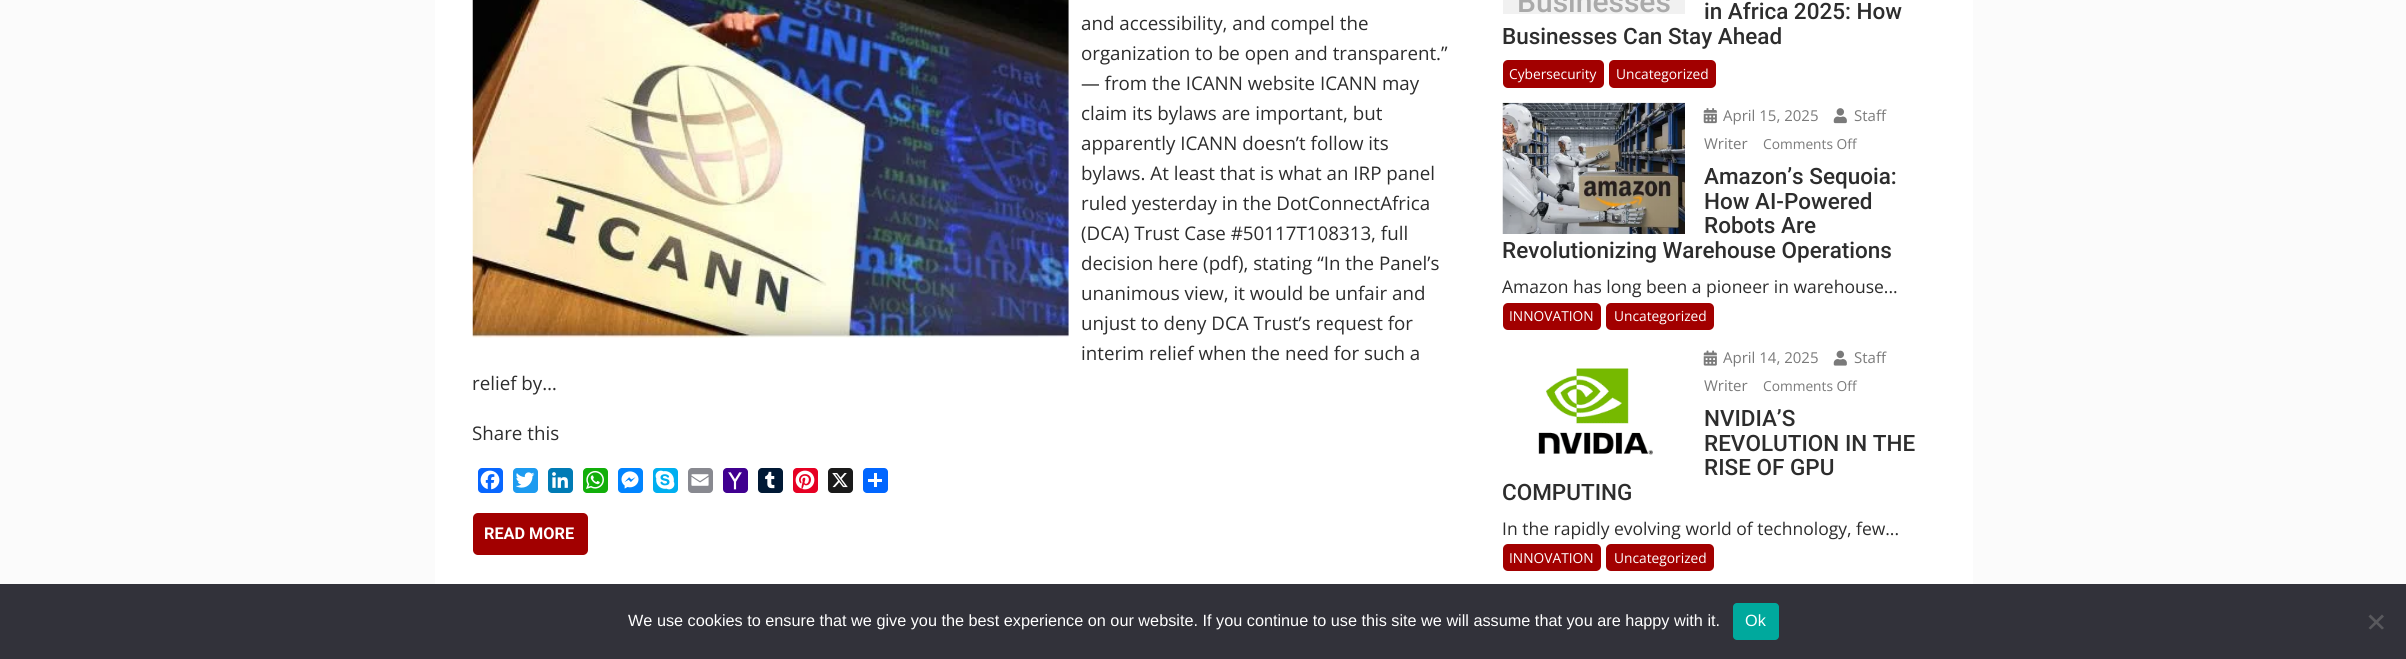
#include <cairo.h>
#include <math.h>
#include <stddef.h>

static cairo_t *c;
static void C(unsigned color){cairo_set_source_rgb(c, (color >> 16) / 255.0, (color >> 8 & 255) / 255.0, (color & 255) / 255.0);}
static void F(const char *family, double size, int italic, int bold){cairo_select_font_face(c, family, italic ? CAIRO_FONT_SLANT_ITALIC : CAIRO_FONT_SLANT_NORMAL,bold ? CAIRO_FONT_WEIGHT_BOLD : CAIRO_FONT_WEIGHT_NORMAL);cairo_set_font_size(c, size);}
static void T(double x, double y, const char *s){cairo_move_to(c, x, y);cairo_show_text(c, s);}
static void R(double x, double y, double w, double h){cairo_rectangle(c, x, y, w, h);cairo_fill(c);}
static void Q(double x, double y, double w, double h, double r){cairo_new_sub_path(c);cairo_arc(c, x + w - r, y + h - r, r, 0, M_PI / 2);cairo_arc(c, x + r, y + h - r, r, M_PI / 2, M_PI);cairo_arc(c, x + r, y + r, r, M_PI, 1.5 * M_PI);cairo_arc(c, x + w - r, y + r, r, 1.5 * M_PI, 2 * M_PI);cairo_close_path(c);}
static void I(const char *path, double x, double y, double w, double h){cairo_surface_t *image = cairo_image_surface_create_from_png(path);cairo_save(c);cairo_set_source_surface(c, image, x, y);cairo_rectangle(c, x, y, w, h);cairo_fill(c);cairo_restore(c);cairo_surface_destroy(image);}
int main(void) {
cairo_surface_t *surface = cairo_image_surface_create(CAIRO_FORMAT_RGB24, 2406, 659);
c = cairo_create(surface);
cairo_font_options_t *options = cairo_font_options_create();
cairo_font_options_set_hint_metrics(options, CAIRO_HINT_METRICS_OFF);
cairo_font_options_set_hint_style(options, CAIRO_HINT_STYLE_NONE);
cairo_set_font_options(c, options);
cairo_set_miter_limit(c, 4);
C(0xfbfbfb);
cairo_paint(c);
C(0xffffff);
R(435,0,1538,584);
I("1.png",472,0,597,338);
F("Open Sans",18.75,0,0);
C(0x2d2d2d);
T(1081,30,"and accessibility, and compel the");
T(1081,60,"organization to be open and transparent.”");
T(1081,90,"— from the ICANN website ICANN may");
T(1081,120,"claim its bylaws are important, but");
T(1081,150,"apparently ICANN doesn’t follow its");
T(1081,180,"bylaws. At least that is what an IRP panel");
T(1081,210,"ruled yesterday in the DotConnectAfrica");
T(1081,240,"(DCA) Trust Case #50117T108313, full");
T(1081,270,"decision here (pdf), stating “In the Panel’s");
T(1081,300,"unanimous view, it would be unfair and");
T(1081,330,"unjust to deny DCA Trust’s request for");
T(1081,360,"interim relief when the need for such a");
T(472,390,"relief by…");
T(472,440,"Share this");
C(0x0866ff);
Q(478,468,25,25,4);
cairo_fill(c);
I("2.png",480,470,20,20);
C(0x1d9bf0);
Q(513,468,25,25,4);
cairo_fill(c);
I("3.png",516,472,19,16);
C(0x007bb5);
Q(548,468,25,25,4);
cairo_fill(c);
I("4.png",552,472,16,16);
C(0x12af0a);
Q(583,468,25,25,4);
cairo_fill(c);
I("5.png",586,470,18,19);
C(0x0084ff);
Q(618,468,25,25,4);
cairo_fill(c);
I("6.png",621,471,18,18);
C(0x00aff0);
Q(653,468,25,25,4);
cairo_fill(c);
I("7.png",655,470,20,20);
C(0x888990);
Q(688,468,25,25,4);
cairo_fill(c);
I("8.png",691,474,18,12);
C(0x400090);
Q(723,468,25,25,4);
cairo_fill(c);
I("9.png",728,472,14,18);
C(0x001935);
Q(758,468,25,25,4);
cairo_fill(c);
I("10.png",765,471,10,18);
C(0xe60023);
Q(793,468,25,25,4);
cairo_fill(c);
I("11.png",795,470,20,20);
C(0x1a1a1a);
Q(828,468,25,25,4);
cairo_fill(c);
I("12.png",832,473,16,15);
C(0x0166ff);
Q(863,468,25,25,4);
cairo_fill(c);
C(0xffffff);
R(874,473,3,14);
R(868,479,14,3);
C(0xa20000);
Q(473,513,115,42,5);
cairo_fill(c);
F("Roboto",16.25,0,1);
C(0xffffff);
T(484,539,"READ MORE");
C(0xf1f1f1);
R(1503,0,182,14);
F("Roboto Medium",30,0,0);
C(0xaaaaaa);
T(1517,12,"Businesses");
F("Roboto Medium",22.5,0,0);
C(0x2d2d2d);
T(1704,19,"in Africa 2025: How");
T(1502,44,"Businesses Can Stay Ahead");
C(0xa20000);
Q(1503,60,101,28,5);
cairo_fill(c);
F("Open Sans",13.75,0,0);
C(0xffffff);
T(1509,79,"Cybersecurity");
C(0xa20000);
Q(1609,60,107,28,5);
cairo_fill(c);
C(0xffffff);
T(1616,79,"Uncategorized");
I("13.png",1502,102,183,132);
I("14.png",1833,108,14,16);
F("Open Sans",15,0,0);
C(0x7a7a7a);
T(1854,121,"Staff");
T(1704,149,"Writer");
I("15.png",1703,108,14,16);
T(1723,121,"April 15, 2025");
F("Open Sans",13.75,0,0);
T(1763,149,"Comments Off");
F("Roboto Medium",22.5,0,0);
C(0x2d2d2d);
T(1704,184,"Amazon’s Sequoia:");
T(1704,209,"How AI-Powered");
T(1704,233,"Robots Are");
T(1502,258,"Revolutionizing Warehouse Operations");
F("Open Sans",17.5,0,0);
T(1502,293,"Amazon has long been a pioneer in warehouse...");
C(0xa20000);
Q(1503,303,98,27,5);
cairo_fill(c);
F("Open Sans",13.75,0,0);
C(0xffffff);
T(1509,321,"INNOVATION");
C(0xa20000);
Q(1606,303,108,27,5);
cairo_fill(c);
C(0xffffff);
T(1614,321,"Uncategorized");
I("16.png",1833,350,14,16);
F("Open Sans",15,0,0);
C(0x7a7a7a);
T(1854,363,"Staff");
T(1704,391,"Writer");
I("17.png",1703,350,14,16);
T(1723,363,"April 14, 2025");
F("Open Sans",13.75,0,0);
T(1763,391,"Comments Off");
F("Roboto Medium",22.5,0,0);
C(0x2d2d2d);
T(1704,426,"NVIDIA’S");
T(1704,451,"REVOLUTION IN THE");
T(1704,475,"RISE OF GPU");
T(1502,500,"COMPUTING");
F("Open Sans",17.5,0,0);
T(1502,535,"In the rapidly evolving world of technology, few...");
C(0xa20000);
Q(1503,544,98,27,5);
cairo_fill(c);
F("Open Sans",13.75,0,0);
C(0xffffff);
T(1509,563,"INNOVATION");
C(0xa20000);
Q(1606,544,108,27,5);
cairo_fill(c);
C(0xffffff);
T(1614,563,"Uncategorized");
I("18.png",1538,368,115,87);
C(0x32323a);
R(0,584,2406,75);
F("Liberation Sans",16.25,0,0);
C(0xffffff);
T(628,626,"We use cookies to ensure that we give you the best experience on our website. If you continue to use this site we will assume that you are happy with it.");
C(0x00a99d);
Q(1733,603,46,37,4);
cairo_fill(c);
C(0xffffff);
T(1745,626,"Ok");
C(0x59595d);
cairo_new_path(c);
cairo_move_to(c,2382,614.5);
cairo_line_to(c,2384,616.5);
cairo_line_to(c,2370.5,629.5);
cairo_line_to(c,2368.5,628);
cairo_close_path(c);
cairo_fill(c);
cairo_new_path(c);
cairo_move_to(c,2368.5,616.5);
cairo_line_to(c,2370.5,614.5);
cairo_line_to(c,2384,628);
cairo_line_to(c,2382,629.5);
cairo_close_path(c);
cairo_fill(c);
cairo_surface_write_to_png(surface, "o.png");
cairo_font_options_destroy(options);
cairo_destroy(c);
cairo_surface_destroy(surface);
return 0;
}
